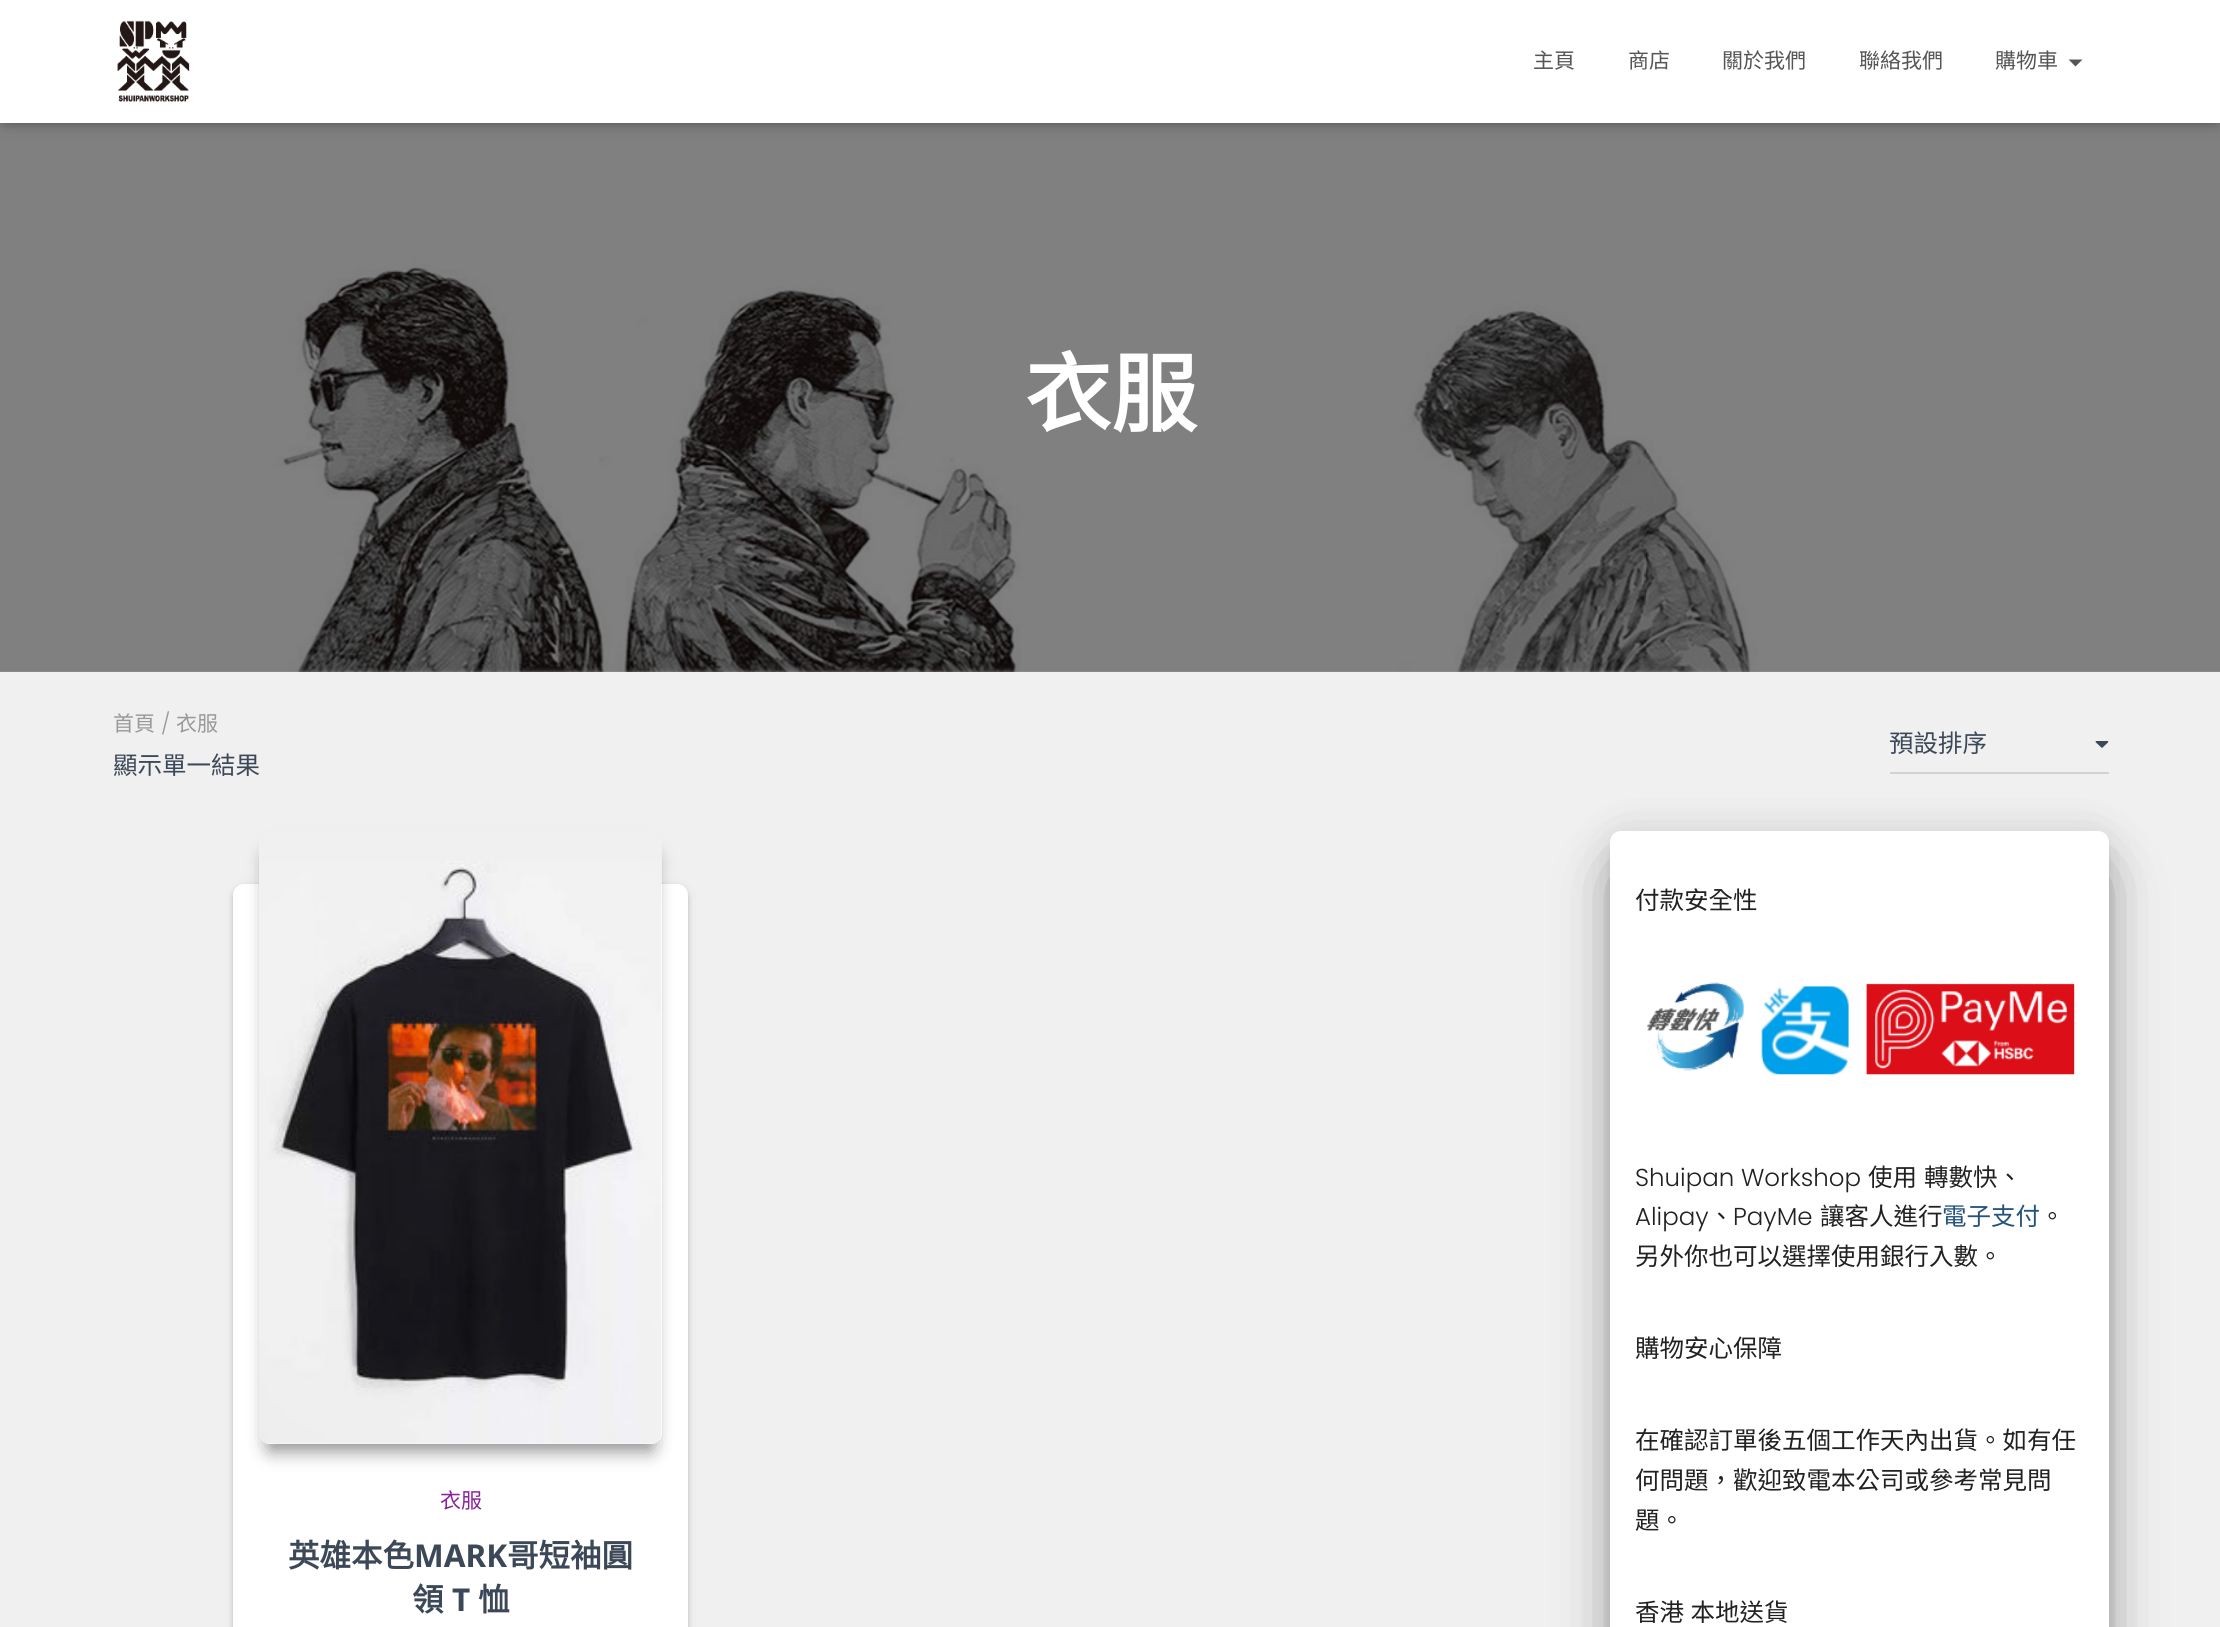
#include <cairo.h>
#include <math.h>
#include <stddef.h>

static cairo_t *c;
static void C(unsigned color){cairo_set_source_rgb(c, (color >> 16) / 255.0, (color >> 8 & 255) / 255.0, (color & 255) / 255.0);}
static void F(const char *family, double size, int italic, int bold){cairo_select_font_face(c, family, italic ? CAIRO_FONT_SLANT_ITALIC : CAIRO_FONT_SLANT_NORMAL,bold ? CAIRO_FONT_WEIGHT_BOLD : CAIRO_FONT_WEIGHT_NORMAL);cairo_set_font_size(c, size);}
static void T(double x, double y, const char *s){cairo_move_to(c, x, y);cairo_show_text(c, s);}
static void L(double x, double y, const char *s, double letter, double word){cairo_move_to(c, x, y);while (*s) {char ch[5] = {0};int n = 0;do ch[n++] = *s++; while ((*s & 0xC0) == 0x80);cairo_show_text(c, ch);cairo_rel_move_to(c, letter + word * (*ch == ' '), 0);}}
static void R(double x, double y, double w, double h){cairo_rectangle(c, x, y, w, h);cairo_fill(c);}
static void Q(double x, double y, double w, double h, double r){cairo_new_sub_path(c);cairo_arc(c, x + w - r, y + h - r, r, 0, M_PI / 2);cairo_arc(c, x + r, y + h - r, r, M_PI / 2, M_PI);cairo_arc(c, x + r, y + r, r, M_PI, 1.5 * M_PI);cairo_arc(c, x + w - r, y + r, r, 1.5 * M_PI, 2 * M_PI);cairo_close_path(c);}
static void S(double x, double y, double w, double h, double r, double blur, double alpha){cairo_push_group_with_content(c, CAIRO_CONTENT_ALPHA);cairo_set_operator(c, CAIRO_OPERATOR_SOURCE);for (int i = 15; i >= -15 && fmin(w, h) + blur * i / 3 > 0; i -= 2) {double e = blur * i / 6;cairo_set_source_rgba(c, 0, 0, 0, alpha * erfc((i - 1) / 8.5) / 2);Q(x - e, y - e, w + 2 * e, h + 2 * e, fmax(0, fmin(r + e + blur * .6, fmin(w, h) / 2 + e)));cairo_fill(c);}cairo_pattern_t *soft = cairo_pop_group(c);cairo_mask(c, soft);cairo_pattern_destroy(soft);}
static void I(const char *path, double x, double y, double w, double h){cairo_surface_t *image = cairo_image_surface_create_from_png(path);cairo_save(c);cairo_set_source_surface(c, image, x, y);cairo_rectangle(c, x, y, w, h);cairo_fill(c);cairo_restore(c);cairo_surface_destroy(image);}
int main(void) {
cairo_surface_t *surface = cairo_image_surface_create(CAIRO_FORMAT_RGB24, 2220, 1627);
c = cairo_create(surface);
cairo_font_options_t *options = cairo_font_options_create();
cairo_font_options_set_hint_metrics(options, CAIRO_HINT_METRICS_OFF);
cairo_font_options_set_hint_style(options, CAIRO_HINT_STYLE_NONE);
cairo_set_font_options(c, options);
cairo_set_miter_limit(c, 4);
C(0xffffff);
cairo_paint(c);
I("2.png",0,123,2220,549);
C(0x000000);
S(4,11,2213,115,0,4.5,.1);
S(0,2,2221,122,0,9,.12);
S(11,12,2199,102,0,9,.42);
C(0xffffff);
R(0,0,2220,123);
I("1.png",117,20,73,82);
F("Noto Sans CJK TC",21,0,0);
C(0x555555);
T(1533,68,"主頁");
T(1628,68,"商店");
T(1722,68,"關於我們");
T(1859,68,"聯絡我們");
T(1995,68,"購物車");
cairo_new_path(c);
cairo_move_to(c,2068.5,59.5);
cairo_line_to(c,2082.5,59.5);
cairo_line_to(c,2075.5,66.5);
cairo_close_path(c);
cairo_fill(c);
F("Noto Sans CJK TC",86,0,1);
C(0xffffff);
T(1025,425,"衣服");
C(0xf0f0f0);
R(0,672,2220,955);
F("Noto Sans CJK TC",21,0,0);
C(0x999999);
T(113,731,"首頁");
F("Poppins Light",21,0,0);
T(161,731,"/");
F("Noto Sans CJK TC",21,0,0);
T(176,731,"衣服");
F("Noto Sans CJK TC",24.5,0,0);
C(0x3c4858);
T(113,774,"顯示單一結果");
C(0xd2d2d2);
R(1890,772,219,2);
C(0x3c4858);
T(1889,752,"預設排序");
I("3.png",2095,741,14,7);
C(0x000000);
S(233,886,455,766,11,4.5,.12);
S(233,887,455,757,11,2,.14);
C(0xffffff);
Q(233,884,455,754,11);
cairo_fill(c);
cairo_save(c);
cairo_set_fill_rule(c,CAIRO_FILL_RULE_EVEN_ODD);
cairo_new_path(c);
cairo_move_to(c,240,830);
cairo_line_to(c,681,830);
cairo_line_to(c,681,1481);
cairo_line_to(c,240,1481);
cairo_close_path(c);
cairo_move_to(c,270,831);
cairo_line_to(c,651,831);
cairo_curve_to(c,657,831,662,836,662,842);
cairo_line_to(c,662,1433);
cairo_curve_to(c,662,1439,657,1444,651,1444);
cairo_line_to(c,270,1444);
cairo_curve_to(c,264,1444,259,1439,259,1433);
cairo_line_to(c,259,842);
cairo_curve_to(c,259,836,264,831,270,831);
cairo_close_path(c);
cairo_clip(c);
C(0x000000);
S(268,858,385,595,2,9,.2);
cairo_restore(c);
cairo_save(c);
cairo_set_fill_rule(c,CAIRO_FILL_RULE_EVEN_ODD);
cairo_new_path(c);
cairo_move_to(c,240,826);
cairo_line_to(c,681,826);
cairo_line_to(c,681,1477);
cairo_line_to(c,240,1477);
cairo_close_path(c);
cairo_move_to(c,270,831);
cairo_line_to(c,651,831);
cairo_curve_to(c,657,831,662,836,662,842);
cairo_line_to(c,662,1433);
cairo_curve_to(c,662,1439,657,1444,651,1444);
cairo_line_to(c,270,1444);
cairo_curve_to(c,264,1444,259,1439,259,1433);
cairo_line_to(c,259,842);
cairo_curve_to(c,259,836,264,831,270,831);
cairo_close_path(c);
cairo_clip(c);
C(0x000000);
S(268,854,385,595,2,9,.2);
cairo_restore(c);
cairo_save(c);
cairo_set_fill_rule(c,CAIRO_FILL_RULE_EVEN_ODD);
cairo_new_path(c);
cairo_move_to(c,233,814);
cairo_line_to(c,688,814);
cairo_line_to(c,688,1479);
cairo_line_to(c,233,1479);
cairo_close_path(c);
cairo_move_to(c,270,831);
cairo_line_to(c,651,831);
cairo_curve_to(c,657,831,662,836,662,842);
cairo_line_to(c,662,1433);
cairo_curve_to(c,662,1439,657,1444,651,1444);
cairo_line_to(c,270,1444);
cairo_curve_to(c,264,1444,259,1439,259,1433);
cairo_line_to(c,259,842);
cairo_curve_to(c,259,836,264,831,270,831);
cairo_close_path(c);
cairo_clip(c);
C(0x000000);
S(273,854,375,585,0,13,.24);
cairo_restore(c);
I("4.png",259,861,403,583);
F("Noto Sans CJK TC",21,0,0);
C(0x89229b);
T(440,1508,"衣服");
F("Noto Sans CJK TC",31.5,0,1);
C(0x3c4858);
T(288,1567,"英雄本色");
F("Noto Sans",31.5,0,1);
T(414,1567,"MARK");
F("Noto Sans CJK TC",31.5,0,1);
T(507,1567,"哥短袖圓");
T(412,1611,"領");
F("Noto Sans",31.5,0,1);
T(452,1611,"T");
F("Noto Sans CJK TC",31.5,0,1);
T(478,1611,"恤");
C(0x000000);
S(1619,854,481,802,2,9,.2);
S(1610,838,499,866,11,22,.12);
S(1631,880,457,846,0,33,.56);
C(0xffffff);
Q(1610,831,499,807,11);
cairo_fill(c);
F("Noto Sans CJK TC",24.5,0,0);
C(0x212121);
T(1635,909,"付款安全性");
I("5.png",1647,982,428,93);
F("Poppins Light",24.5,0,0);
T(1635,1186,"Shuipan Workshop");
F("Noto Sans CJK TC",24.5,0,0);
T(1868,1186,"使用");
T(1924,1186,"轉數快、");
F("Poppins Light",24.5,0,0);
T(1635,1225,"Alipay");
F("Noto Sans CJK TC",24.5,0,0);
T(1709,1225,"、");
F("Poppins Light",24.5,0,0);
T(1733,1225,"PayMe");
F("Noto Sans CJK TC",24.5,0,0);
T(1820,1225,"讓客人進行");
C(0x23527c);
T(1942,1225,"電子支付");
C(0x212121);
T(2040,1225,"。");
T(1635,1265,"另外你也可以選擇使用銀行入數。");
T(1635,1357,"購物安心保障");
T(1635,1449,"在確認訂單後五個工作天內出貨。如有任");
T(1635,1489,"何問題，歡迎致電本公司或參考常見問");
T(1635,1529,"題。");
L(1635,1621,"香港 本地送貨",0,1);
cairo_surface_write_to_png(surface, "o.png");
cairo_font_options_destroy(options);
cairo_destroy(c);
cairo_surface_destroy(surface);
return 0;
}
